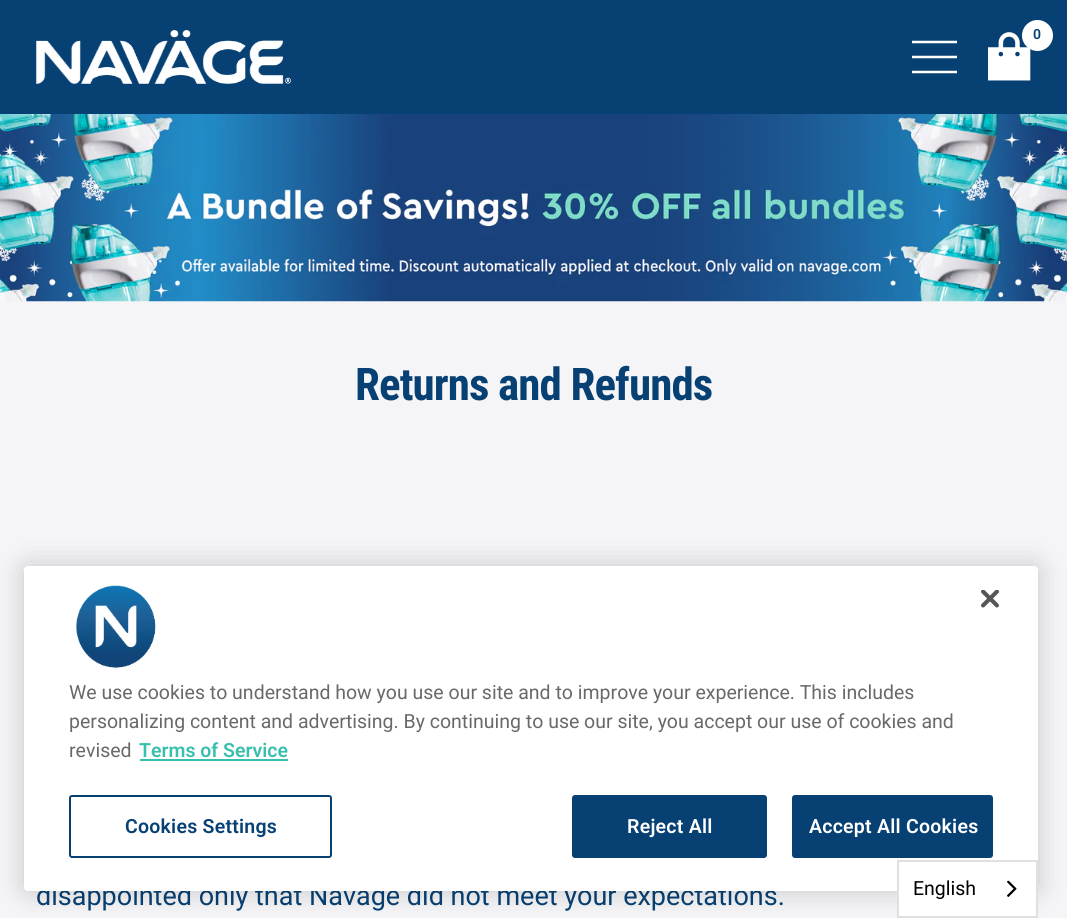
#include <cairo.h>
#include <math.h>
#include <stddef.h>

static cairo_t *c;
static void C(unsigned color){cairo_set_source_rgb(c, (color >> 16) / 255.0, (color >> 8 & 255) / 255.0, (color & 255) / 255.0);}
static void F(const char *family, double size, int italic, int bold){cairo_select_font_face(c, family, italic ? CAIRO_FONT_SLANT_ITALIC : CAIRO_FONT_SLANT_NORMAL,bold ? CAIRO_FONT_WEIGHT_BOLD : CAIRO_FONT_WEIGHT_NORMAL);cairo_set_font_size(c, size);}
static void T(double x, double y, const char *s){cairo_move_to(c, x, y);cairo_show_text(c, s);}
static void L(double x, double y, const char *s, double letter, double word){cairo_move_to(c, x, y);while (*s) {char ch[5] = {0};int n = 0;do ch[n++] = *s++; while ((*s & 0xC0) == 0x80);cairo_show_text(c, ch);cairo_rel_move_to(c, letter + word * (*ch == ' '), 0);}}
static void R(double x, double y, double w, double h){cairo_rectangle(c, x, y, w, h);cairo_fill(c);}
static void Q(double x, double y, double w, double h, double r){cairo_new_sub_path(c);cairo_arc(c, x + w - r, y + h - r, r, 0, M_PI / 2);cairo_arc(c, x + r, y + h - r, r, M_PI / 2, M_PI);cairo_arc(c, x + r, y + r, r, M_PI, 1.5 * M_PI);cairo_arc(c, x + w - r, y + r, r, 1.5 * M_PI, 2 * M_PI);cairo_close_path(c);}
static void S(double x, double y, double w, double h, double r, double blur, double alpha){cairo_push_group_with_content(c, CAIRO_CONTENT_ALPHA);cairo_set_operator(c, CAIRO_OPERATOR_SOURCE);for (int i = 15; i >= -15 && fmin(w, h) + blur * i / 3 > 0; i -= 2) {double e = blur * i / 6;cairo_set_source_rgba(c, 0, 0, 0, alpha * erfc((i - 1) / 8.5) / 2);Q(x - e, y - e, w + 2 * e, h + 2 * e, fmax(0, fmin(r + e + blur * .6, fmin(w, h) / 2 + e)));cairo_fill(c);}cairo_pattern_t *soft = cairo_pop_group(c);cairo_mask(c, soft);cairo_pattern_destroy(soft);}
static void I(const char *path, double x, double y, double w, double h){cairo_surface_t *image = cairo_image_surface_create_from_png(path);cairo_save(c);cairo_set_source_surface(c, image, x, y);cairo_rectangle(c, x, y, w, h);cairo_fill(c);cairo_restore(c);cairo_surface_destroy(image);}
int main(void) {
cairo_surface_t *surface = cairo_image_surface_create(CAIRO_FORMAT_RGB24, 1067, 918);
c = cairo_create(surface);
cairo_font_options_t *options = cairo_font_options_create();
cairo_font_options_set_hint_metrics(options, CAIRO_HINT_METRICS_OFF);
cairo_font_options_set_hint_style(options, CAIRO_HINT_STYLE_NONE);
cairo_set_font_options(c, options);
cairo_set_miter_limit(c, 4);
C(0xf5f5f7);
cairo_paint(c);
C(0x074174);
R(0,0,1067,114);
I("1.png",36,30,255,54);
I("2.png",988,32,43,49);
C(0xffffff);
cairo_arc(c,1037.5,35.5,15.5,0,2 * M_PI);
cairo_fill(c);
F("Roboto SemiBold",14,0,0);
C(0x074174);
T(1033,39,"0");
cairo_new_path(c);
cairo_move_to(c,912,42);
cairo_line_to(c,957,42);
cairo_move_to(c,912,72);
cairo_line_to(c,957,72);
cairo_close_path(c);
cairo_move_to(c,912,57);
cairo_line_to(c,957,57);
cairo_close_path(c);
C(0xffffff);
cairo_set_line_width(c,2.5);
cairo_stroke(c);
I("3.png",0,114,1067,188);
F("Roboto Condensed",45,0,1);
C(0x074174);
L(355,400,"Returns and Refunds",-.9,0);
F("Roboto",27,0,0);
T(36,905,"disappointed only that Naväge did not meet your expectations.");
C(0x000000);
S(24,566,1014,325,4,13.5,.2);
C(0xffffff);
Q(24,566,1014,325,4);
cairo_fill(c);
I("4.png",981,590,18,18);
I("5.png",76,585,80,83);
F("Roboto",19.5,0,0);
C(0x696969);
T(69,699,"We use cookies to understand how you use our site and to improve your experience. This includes");
T(69,728,"personalizing content and advertising. By continuing to use our site, you accept our use of cookies and");
T(69,757,"revised");
F("Roboto SemiBold",19.5,0,0);
C(0x39bfad);
T(139,757,"Terms of Service");
R(140,759,148,2);
Q(70,796,261,61,2);
C(0x074174);
cairo_set_line_width(c,2);
cairo_stroke(c);
L(125,833,"Cookies Settings",.25,0);
Q(573,796,193,61,2);
cairo_fill_preserve(c);
cairo_stroke(c);
C(0xffffff);
L(627,833,"Reject All",.25,0);
C(0x074174);
Q(793,796,199,61,2);
cairo_fill_preserve(c);
cairo_stroke(c);
C(0xffffff);
L(809,833,"Accept All Cookies",.25,0);
R(899,890,137,26);
cairo_rectangle(c,898,861,139,56);
C(0xe0e0e0);
cairo_stroke(c);
F("Roboto",19.5,0,0);
C(0x000000);
T(913,895,"English");
I("6.png",1007,880,10,17);
cairo_surface_write_to_png(surface, "o.png");
cairo_font_options_destroy(options);
cairo_destroy(c);
cairo_surface_destroy(surface);
return 0;
}
